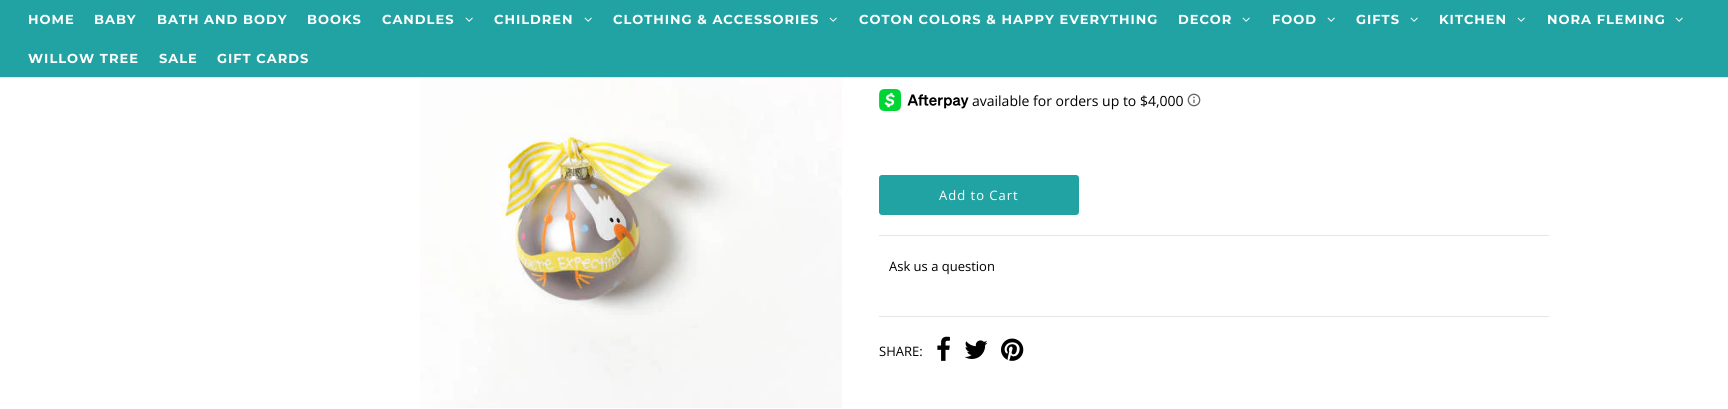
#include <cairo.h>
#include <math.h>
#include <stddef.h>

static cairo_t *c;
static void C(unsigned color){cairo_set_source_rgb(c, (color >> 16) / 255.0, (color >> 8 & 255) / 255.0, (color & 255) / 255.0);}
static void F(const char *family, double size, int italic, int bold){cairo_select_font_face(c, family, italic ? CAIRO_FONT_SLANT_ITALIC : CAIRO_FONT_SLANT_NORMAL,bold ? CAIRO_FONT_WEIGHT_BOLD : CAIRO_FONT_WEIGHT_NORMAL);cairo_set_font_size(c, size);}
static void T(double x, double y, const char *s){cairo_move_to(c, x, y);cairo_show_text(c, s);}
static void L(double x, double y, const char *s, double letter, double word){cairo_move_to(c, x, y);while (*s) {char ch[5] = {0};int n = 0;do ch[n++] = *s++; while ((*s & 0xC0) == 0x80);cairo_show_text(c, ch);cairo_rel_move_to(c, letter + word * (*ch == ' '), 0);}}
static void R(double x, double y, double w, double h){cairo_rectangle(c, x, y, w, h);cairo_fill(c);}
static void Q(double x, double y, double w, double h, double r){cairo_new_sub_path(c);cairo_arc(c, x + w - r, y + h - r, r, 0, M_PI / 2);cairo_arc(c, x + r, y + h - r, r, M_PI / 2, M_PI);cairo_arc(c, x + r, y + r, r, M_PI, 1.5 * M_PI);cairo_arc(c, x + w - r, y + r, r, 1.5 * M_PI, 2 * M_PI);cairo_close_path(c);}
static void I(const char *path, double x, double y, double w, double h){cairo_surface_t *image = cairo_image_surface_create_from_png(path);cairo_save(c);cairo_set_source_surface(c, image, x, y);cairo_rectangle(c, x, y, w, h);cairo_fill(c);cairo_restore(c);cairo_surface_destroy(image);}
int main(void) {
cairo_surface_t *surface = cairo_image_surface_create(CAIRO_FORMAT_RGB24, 1728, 409);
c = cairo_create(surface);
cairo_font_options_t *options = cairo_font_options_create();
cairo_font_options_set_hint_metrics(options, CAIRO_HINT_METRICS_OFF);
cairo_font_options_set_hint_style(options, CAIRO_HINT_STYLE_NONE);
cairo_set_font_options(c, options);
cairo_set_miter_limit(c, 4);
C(0xffffff);
cairo_paint(c);
C(0x21a3a3);
R(0,0,1728,77);
C(0xe5e5e5);
R(0,77,1728,1);
F("Montserrat",13,0,1);
C(0xffffff);
L(28,24,"HOME",1,0);
L(94,24,"BABY",1,0);
L(157,24,"BATH AND BODY",1,0);
L(307,24,"BOOKS",1,0);
L(382,24,"CANDLES",1,0);
I("1.png",465,17,8,5);
L(494,24,"CHILDREN",1,0);
I("1.png",584,17,8,5);
L(613,24,"CLOTHING & ACCESSORIES",1,0);
I("1.png",829,17,8,5);
L(859,24,"COTON COLORS & HAPPY EVERYTHING",1,0);
L(1178,24,"DECOR",1,0);
I("1.png",1242,17,8,5);
L(1272,24,"FOOD",1,0);
I("1.png",1327,17,8,5);
L(1356,24,"GIFTS",1,0);
I("1.png",1410,17,8,5);
L(1439,24,"KITCHEN",1,0);
I("1.png",1517,17,8,5);
L(1547,24,"NORA FLEMING",1,0);
I("1.png",1675,17,8,5);
L(28,63,"WILLOW TREE",1,0);
L(159,63,"SALE",1,0);
L(217,63,"GIFT CARDS",1,0);
I("2.png",420,78,422,330);
I("3.png",879,89,90,22);
F("Open Sans",14,0,0);
C(0x000000);
T(972,106,"available for orders up to $4,000");
I("4.png",1187,93,14,14);
C(0xe5e5e5);
R(879,235,670,1);
C(0x21a3a3);
Q(879,175,200,40,3);
cairo_fill(c);
F("Open Sans",13,0,0);
C(0xffffff);
L(939,200,"Add to Cart",1,0);
C(0x000000);
T(889,271,"Ask us a question");
C(0xe5e5e5);
R(879,316,670,1);
C(0x000000);
T(879,356,"SHARE:");
I("5.png",937,336,13,25);
I("6.png",964,340,24,19);
I("7.png",1001,338,23,23);
cairo_surface_write_to_png(surface, "o.png");
cairo_font_options_destroy(options);
cairo_destroy(c);
cairo_surface_destroy(surface);
return 0;
}
